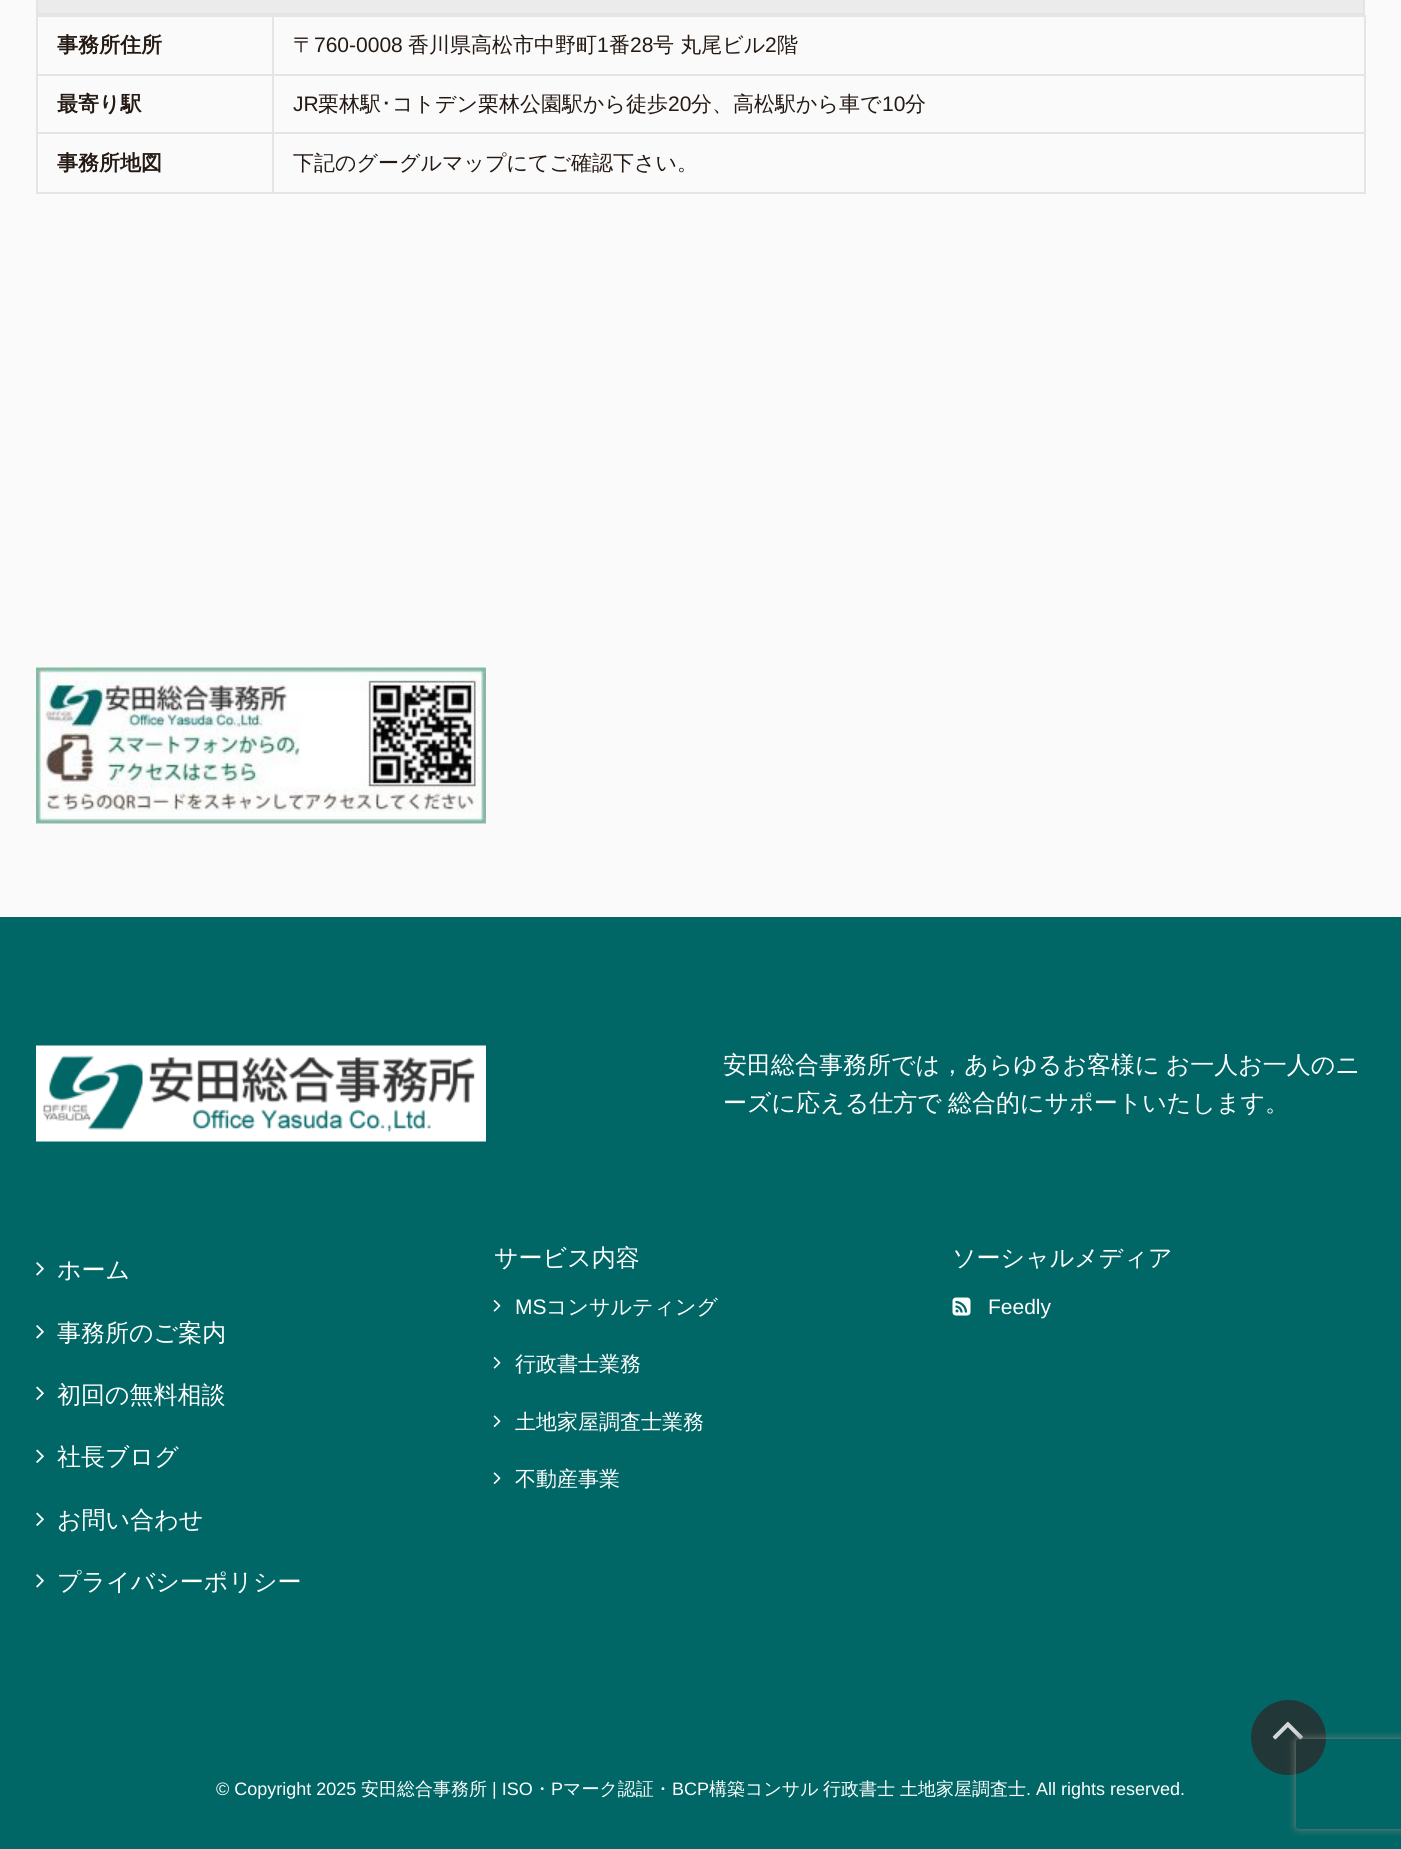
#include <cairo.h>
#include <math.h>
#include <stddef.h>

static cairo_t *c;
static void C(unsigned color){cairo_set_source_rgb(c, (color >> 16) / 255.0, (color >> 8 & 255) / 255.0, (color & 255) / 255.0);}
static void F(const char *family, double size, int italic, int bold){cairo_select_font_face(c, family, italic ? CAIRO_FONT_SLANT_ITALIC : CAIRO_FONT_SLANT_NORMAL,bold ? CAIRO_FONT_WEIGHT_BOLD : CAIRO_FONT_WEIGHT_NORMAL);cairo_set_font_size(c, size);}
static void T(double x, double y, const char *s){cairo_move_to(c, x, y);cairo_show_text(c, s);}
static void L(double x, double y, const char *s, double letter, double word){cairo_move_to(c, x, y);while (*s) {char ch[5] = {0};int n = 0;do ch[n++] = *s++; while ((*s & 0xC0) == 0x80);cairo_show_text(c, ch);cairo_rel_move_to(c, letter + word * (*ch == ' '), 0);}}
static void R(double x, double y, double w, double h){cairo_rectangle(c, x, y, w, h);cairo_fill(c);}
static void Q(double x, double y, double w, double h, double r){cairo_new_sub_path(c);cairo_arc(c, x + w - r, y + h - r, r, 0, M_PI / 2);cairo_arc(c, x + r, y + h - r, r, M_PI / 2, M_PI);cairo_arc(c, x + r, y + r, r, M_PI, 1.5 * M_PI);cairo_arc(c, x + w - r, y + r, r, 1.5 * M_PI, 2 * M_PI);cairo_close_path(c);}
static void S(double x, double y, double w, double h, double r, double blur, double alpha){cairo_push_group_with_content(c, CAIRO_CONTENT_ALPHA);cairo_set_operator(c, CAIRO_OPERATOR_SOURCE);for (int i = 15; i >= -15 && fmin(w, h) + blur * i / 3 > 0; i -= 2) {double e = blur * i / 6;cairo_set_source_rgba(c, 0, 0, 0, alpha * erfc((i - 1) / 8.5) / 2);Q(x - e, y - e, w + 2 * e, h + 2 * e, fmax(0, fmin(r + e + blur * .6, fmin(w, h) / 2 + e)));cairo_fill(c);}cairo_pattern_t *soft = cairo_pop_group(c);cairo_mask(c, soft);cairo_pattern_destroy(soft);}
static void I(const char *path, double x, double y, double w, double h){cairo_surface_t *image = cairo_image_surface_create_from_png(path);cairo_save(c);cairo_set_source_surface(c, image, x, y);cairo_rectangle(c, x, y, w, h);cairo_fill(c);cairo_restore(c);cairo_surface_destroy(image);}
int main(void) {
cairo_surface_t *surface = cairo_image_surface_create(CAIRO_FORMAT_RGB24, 1401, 1849);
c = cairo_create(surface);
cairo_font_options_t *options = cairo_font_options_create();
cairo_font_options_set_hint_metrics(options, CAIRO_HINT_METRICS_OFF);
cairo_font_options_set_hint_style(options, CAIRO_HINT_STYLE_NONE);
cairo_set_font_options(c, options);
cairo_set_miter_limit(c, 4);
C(0xfafafa);
cairo_paint(c);
C(0xebebeb);
cairo_rectangle(c,37,-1,1327,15);
cairo_fill_preserve(c);
C(0xe4e4e4);
cairo_stroke(c);
C(0xe5e5e5);
R(36,15,1329,2);
R(1364,15,2,179);
R(36,192,1329,2);
R(36,15,2,179);
F("WenQuanYi Zen Hei",21,0,1);
C(0x241913);
T(57,52,"事務所住所");
C(0xe5e5e5);
R(272,74,1093,2);
R(272,132,1093,2);
R(272,132,2,62);
R(36,132,237,2);
R(272,74,2,60);
R(36,74,237,2);
R(272,15,2,60);
F("WenQuanYi Zen Hei Medium",21,0,0);
C(0x241913);
T(293,52,"〒");
F("Liberation Sans",21,0,0);
T(314,52,"760-0008");
F("WenQuanYi Zen Hei Medium",21,0,0);
T(408,52,"香川県高松市中野町");
F("Liberation Sans",21,0,0);
T(597,52,"1");
F("WenQuanYi Zen Hei Medium",21,0,0);
T(609,52,"番");
F("Liberation Sans",21,0,0);
T(630,52,"28");
F("WenQuanYi Zen Hei Medium",21,0,0);
T(653,52,"号 丸尾ビル");
F("Liberation Sans",21,0,0);
T(765,52,"2");
F("WenQuanYi Zen Hei Medium",21,0,0);
T(777,52,"階");
F("WenQuanYi Zen Hei",21,0,1);
T(57,111,"最寄り駅");
F("Liberation Sans",21,0,0);
T(293,111,"JR");
F("WenQuanYi Zen Hei Medium",21,0,0);
T(318,111,"栗林駅");
F("IPAPGothic",21,0,0);
T(381,111,"･");
F("WenQuanYi Zen Hei Medium",21,0,0);
T(392,111,"コトデン栗林公園駅から徒歩");
F("Liberation Sans",21,0,0);
T(668,111,"20");
F("WenQuanYi Zen Hei Medium",21,0,0);
T(691,111,"分、高松駅から車で");
F("Liberation Sans",21,0,0);
T(882,111,"10");
F("WenQuanYi Zen Hei Medium",21,0,0);
T(905,111,"分");
F("WenQuanYi Zen Hei",21,0,1);
T(57,170,"事務所地図");
F("WenQuanYi Zen Hei Medium",21,0,0);
T(293,170,"下記のグーグルマップにてご確認下さい。");
I("1.png",36,667,450,157);
C(0x006666);
R(0,917,1401,932);
I("2.png",36,1045,450,97);
F("WenQuanYi Zen Hei Medium",24,0,0);
C(0xffffff);
L(723,1073,"安田総合事務所では，あらゆるお客様に お一人お一人のニ",0,-1);
L(723,1111,"ーズに応える仕方で 総合的にサポートいたします。",0,-1);
I("3.png",36,1262,8,14);
T(57,1278,"ホーム");
I("3.png",36,1325,8,14);
T(57,1341,"事務所のご案内");
I("4.png",36,1386,8,14);
T(57,1403,"初回の無料相談");
I("4.png",36,1449,8,14);
T(57,1465,"社長ブログ");
I("4.png",36,1512,8,14);
T(57,1528,"お問い合わせ");
I("3.png",36,1574,8,14);
T(57,1590,"プライバシーポリシー");
T(494,1266,"サービス内容");
I("5.png",493,1300,8,12);
F("Liberation Sans",21,0,0);
T(515,1314,"MS");
F("WenQuanYi Zen Hei Medium",21,0,0);
T(546,1314,"コンサルティング");
I("5.png",493,1357,8,12);
T(515,1371,"行政書士業務");
I("6.png",493,1415,8,12);
T(515,1429,"土地家屋調査士業務");
I("6.png",493,1472,8,12);
T(515,1486,"不動産事業");
F("WenQuanYi Zen Hei Medium",24,0,0);
T(952,1266,"ソーシャルメディア");
I("7.png",952,1297,19,19);
F("Liberation Sans",21,0,0);
T(988,1314,"Feedly");
F("Liberation Sans",18,0,0);
T(216,1795,"© Copyright 2025");
F("WenQuanYi Zen Hei Medium",18,0,0);
T(361,1795,"安田総合事務所");
F("Liberation Sans",18,0,0);
T(492,1795,"| ISO");
F("WenQuanYi Zen Hei Medium",18,0,0);
T(533,1795,"・");
F("Liberation Sans",18,0,0);
T(551,1795,"P");
F("WenQuanYi Zen Hei Medium",18,0,0);
T(563,1795,"マーク認証・");
F("Liberation Sans",18,0,0);
T(672,1795,"BCP");
F("WenQuanYi Zen Hei Medium",18,0,0);
T(709,1795,"構築コンサル");
T(823,1795,"行政書士");
T(900,1795,"土地家屋調査士");
F("Liberation Sans",18,0,0);
T(1026,1795,". All rights reserved.");
C(0x223737);
cairo_new_path(c);
cairo_arc(c,1288.5,1737.5,37.5,0,2 * M_PI);
cairo_fill(c);
I("8.png",1272,1721,31,19);
cairo_save(c);
cairo_set_fill_rule(c,CAIRO_FILL_RULE_EVEN_ODD);
cairo_new_path(c);
cairo_move_to(c,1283,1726);
cairo_line_to(c,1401,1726);
cairo_line_to(c,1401,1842);
cairo_line_to(c,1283,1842);
cairo_close_path(c);
cairo_move_to(c,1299,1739);
cairo_line_to(c,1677,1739);
cairo_curve_to(c,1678.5,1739,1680,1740.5,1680,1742);
cairo_line_to(c,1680,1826);
cairo_curve_to(c,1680,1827.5,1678.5,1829,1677,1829);
cairo_line_to(c,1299,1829);
cairo_curve_to(c,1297.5,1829,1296,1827.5,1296,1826);
cairo_line_to(c,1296,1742);
cairo_curve_to(c,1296,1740.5,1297.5,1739,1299,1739);
cairo_close_path(c);
cairo_clip(c);
C(0x808080);
S(1296,1739,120,90,3,4,1);
cairo_restore(c);
cairo_surface_write_to_png(surface, "o.png");
cairo_font_options_destroy(options);
cairo_destroy(c);
cairo_surface_destroy(surface);
return 0;
}
